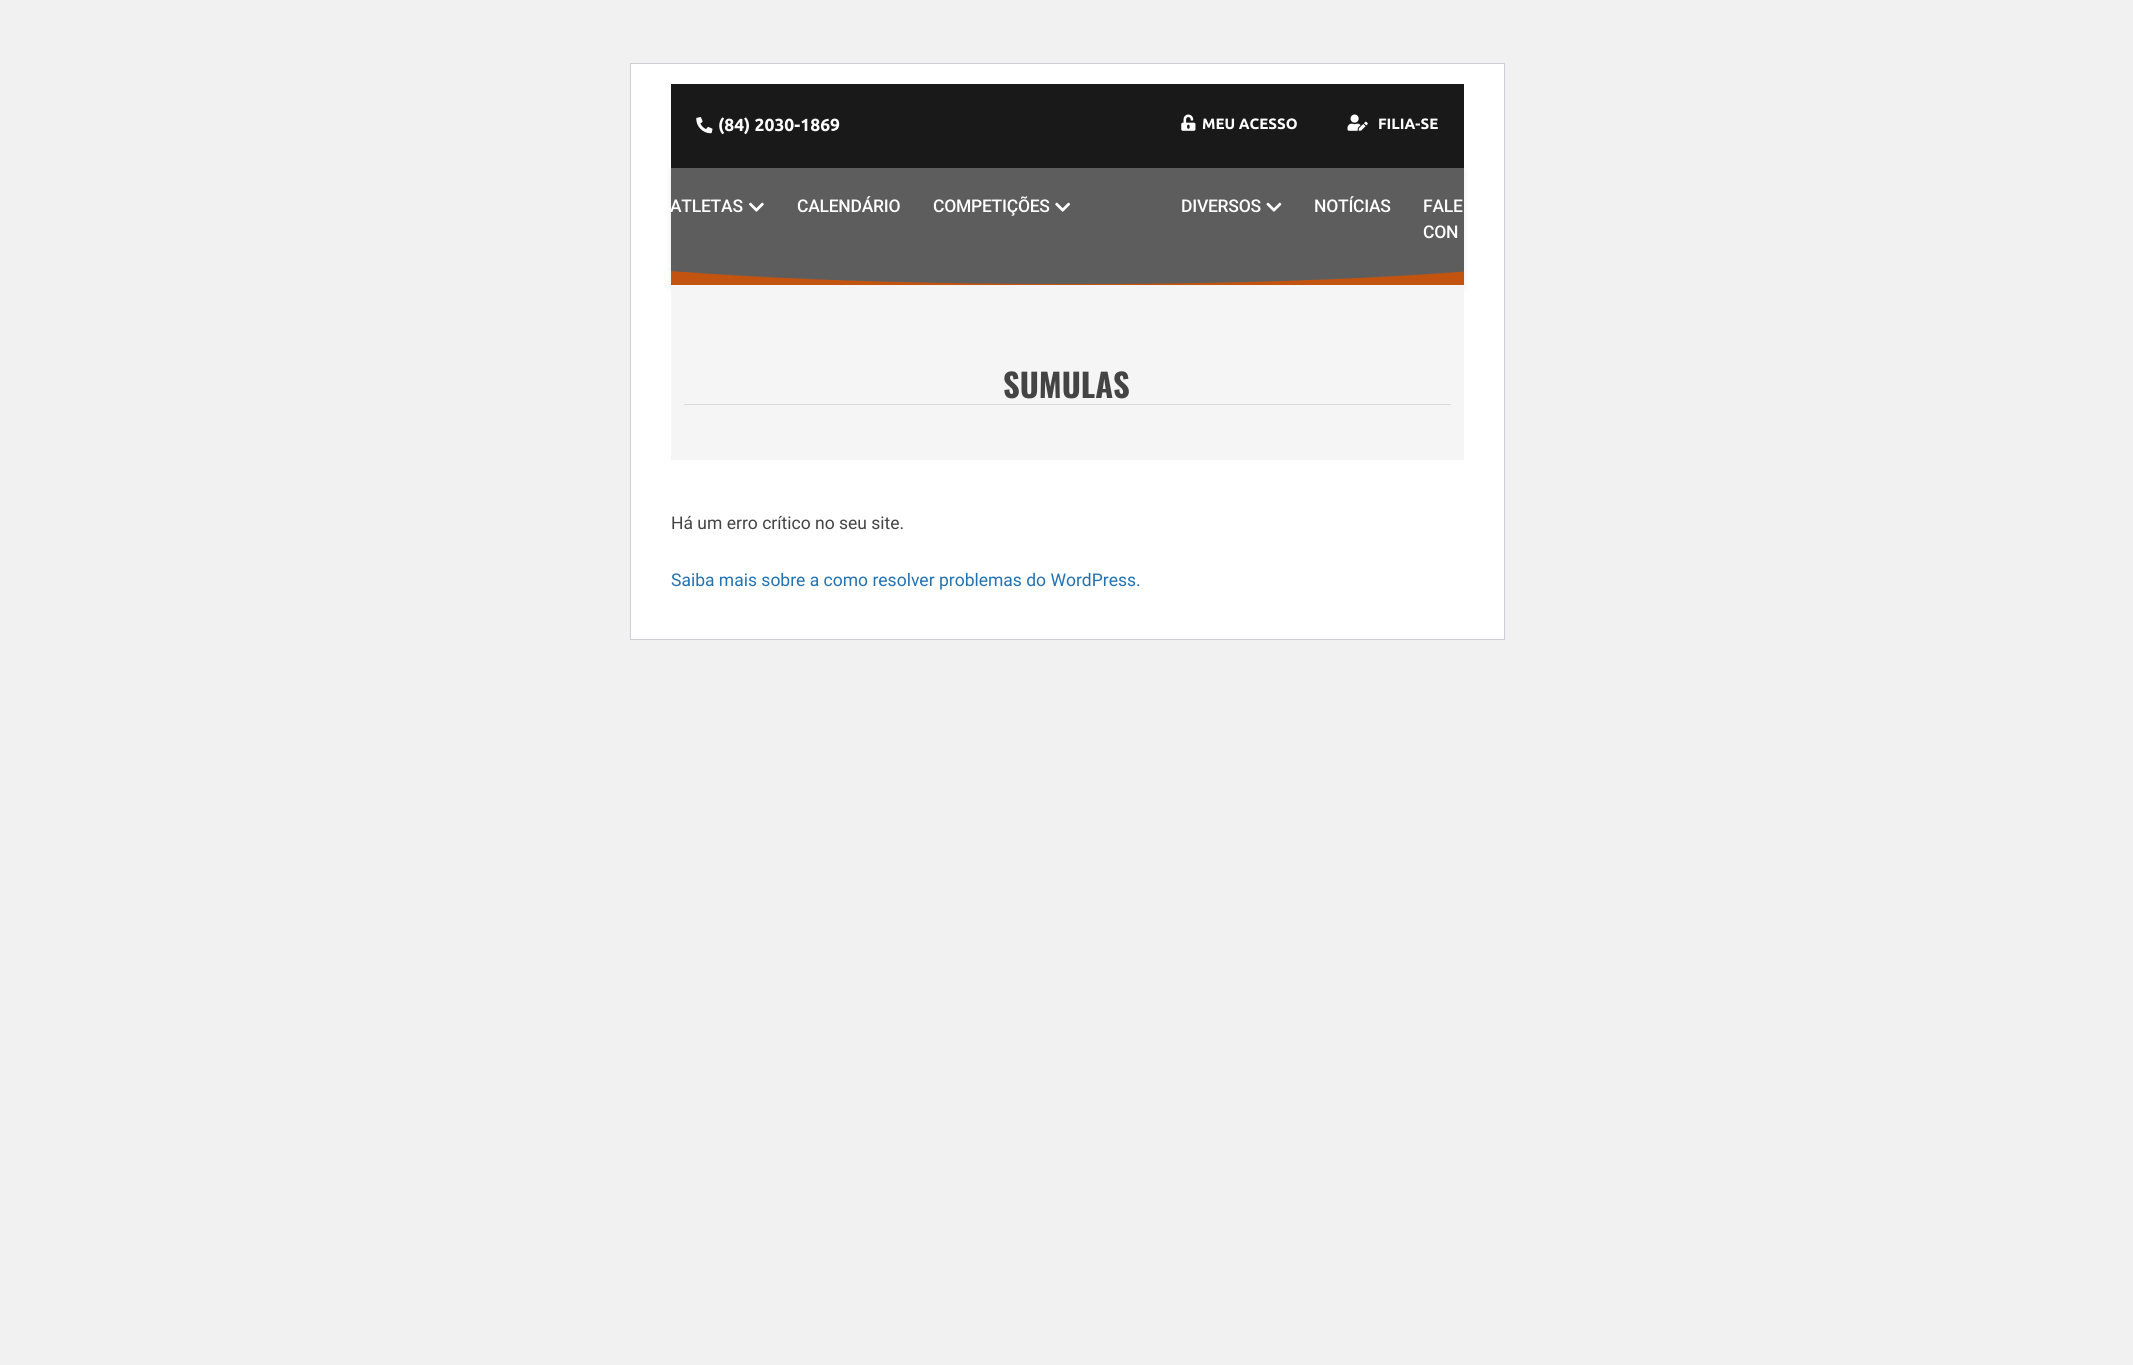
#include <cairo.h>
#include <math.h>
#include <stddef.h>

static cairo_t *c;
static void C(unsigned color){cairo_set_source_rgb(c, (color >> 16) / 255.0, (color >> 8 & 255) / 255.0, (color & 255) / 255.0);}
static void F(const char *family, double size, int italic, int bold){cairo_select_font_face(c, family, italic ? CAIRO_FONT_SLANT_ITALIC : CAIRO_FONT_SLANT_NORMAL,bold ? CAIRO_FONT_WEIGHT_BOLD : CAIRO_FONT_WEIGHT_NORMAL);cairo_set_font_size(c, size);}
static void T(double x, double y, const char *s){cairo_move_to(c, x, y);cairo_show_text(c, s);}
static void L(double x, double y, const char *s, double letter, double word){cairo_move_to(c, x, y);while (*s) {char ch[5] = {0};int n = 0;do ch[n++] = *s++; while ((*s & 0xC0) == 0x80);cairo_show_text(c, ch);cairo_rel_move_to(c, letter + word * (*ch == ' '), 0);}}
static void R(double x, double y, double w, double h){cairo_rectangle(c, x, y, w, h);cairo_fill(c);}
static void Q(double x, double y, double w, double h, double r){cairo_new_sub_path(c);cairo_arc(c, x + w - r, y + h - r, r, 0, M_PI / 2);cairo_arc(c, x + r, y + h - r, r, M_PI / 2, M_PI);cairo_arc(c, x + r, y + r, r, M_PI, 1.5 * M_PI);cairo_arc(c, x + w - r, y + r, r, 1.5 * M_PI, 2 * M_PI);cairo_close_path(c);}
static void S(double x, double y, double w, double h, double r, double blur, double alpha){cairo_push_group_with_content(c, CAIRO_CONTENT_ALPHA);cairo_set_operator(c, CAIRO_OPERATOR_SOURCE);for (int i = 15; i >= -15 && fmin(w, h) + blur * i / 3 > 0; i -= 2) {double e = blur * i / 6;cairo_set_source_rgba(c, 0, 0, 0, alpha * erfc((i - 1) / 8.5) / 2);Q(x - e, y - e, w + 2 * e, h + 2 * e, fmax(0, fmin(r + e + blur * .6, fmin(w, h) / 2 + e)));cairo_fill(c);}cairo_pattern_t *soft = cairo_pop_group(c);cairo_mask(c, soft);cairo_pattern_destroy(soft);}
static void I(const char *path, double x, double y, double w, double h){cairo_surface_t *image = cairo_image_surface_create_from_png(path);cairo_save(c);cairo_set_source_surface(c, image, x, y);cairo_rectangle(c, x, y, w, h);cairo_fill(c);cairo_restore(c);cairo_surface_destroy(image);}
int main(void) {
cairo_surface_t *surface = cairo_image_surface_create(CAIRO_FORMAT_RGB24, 2133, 1365);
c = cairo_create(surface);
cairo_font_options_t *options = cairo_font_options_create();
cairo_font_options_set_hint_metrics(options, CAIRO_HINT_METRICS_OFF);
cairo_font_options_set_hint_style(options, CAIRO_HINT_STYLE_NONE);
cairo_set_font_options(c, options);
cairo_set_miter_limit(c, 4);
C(0xf1f1f1);
cairo_paint(c);
C(0xffffff);
cairo_rectangle(c,630.5,63.5,874,576);
cairo_fill_preserve(c);
C(0xccd0d4);
cairo_set_line_width(c,1);
cairo_stroke(c);
C(0x191919);
R(671,84,793,84);
I("1.png",696,117,17,17);
F("Ubuntu",17.5,0,1);
C(0xffffff);
T(718,131,"(84) 2030-1869");
I("2.png",1181,114,15,17);
F("Ubuntu",15,0,1);
T(1202,129,"MEU ACESSO");
I("3.png",1347,114,21,17);
T(1378,129,"FILIA-SE");
C(0x000000);
S(670,169,795,120,0,3,.06);
C(0x5d5d5d);
R(671,168,793,116);
F("Roboto Medium",17.5,0,0);
C(0xffffff);
L(670,212,"ATLETAS",-.25,0);
I("4.png",749,202,15,10);
L(797,212,"CALENDÁRIO",-.25,0);
L(933,212,"COMPETIÇÕES",-.25,0);
I("5.png",1055,202,16,10);
L(1181,212,"DIVERSOS",-.25,0);
I("6.png",1266,202,16,10);
L(1314,212,"NOTÍCIAS",-.25,0);
L(1423,212,"FALE",-.25,0);
L(1423,238,"CON",-.25,0);
cairo_save(c);
cairo_rectangle(c,671,219,793,67);
cairo_clip(c);
C(0xc35410);
cairo_new_path(c);
cairo_move_to(c,1068,284);
cairo_curve_to(c,549,284,374,232,373,219);
cairo_line_to(c,373,286);
cairo_line_to(c,1762,286);
cairo_line_to(c,1762,219);
cairo_curve_to(c,1762,232,1586,285,1068,284);
cairo_close_path(c);
cairo_fill(c);
cairo_restore(c);
C(0xf5f5f5);
R(671,285,793,175);
C(0xdadada);
R(684,404,767,1);
F("Oswald",32.5,0,1);
C(0x444444);
T(1003,398,"SUMULAS");
F("Roboto",17.5,0,0);
T(671,529,"Há um erro crítico no seu site.");
C(0x2271b1);
T(671,586,"Saiba mais sobre a como resolver problemas do WordPress.");
cairo_surface_write_to_png(surface, "o.png");
cairo_font_options_destroy(options);
cairo_destroy(c);
cairo_surface_destroy(surface);
return 0;
}
